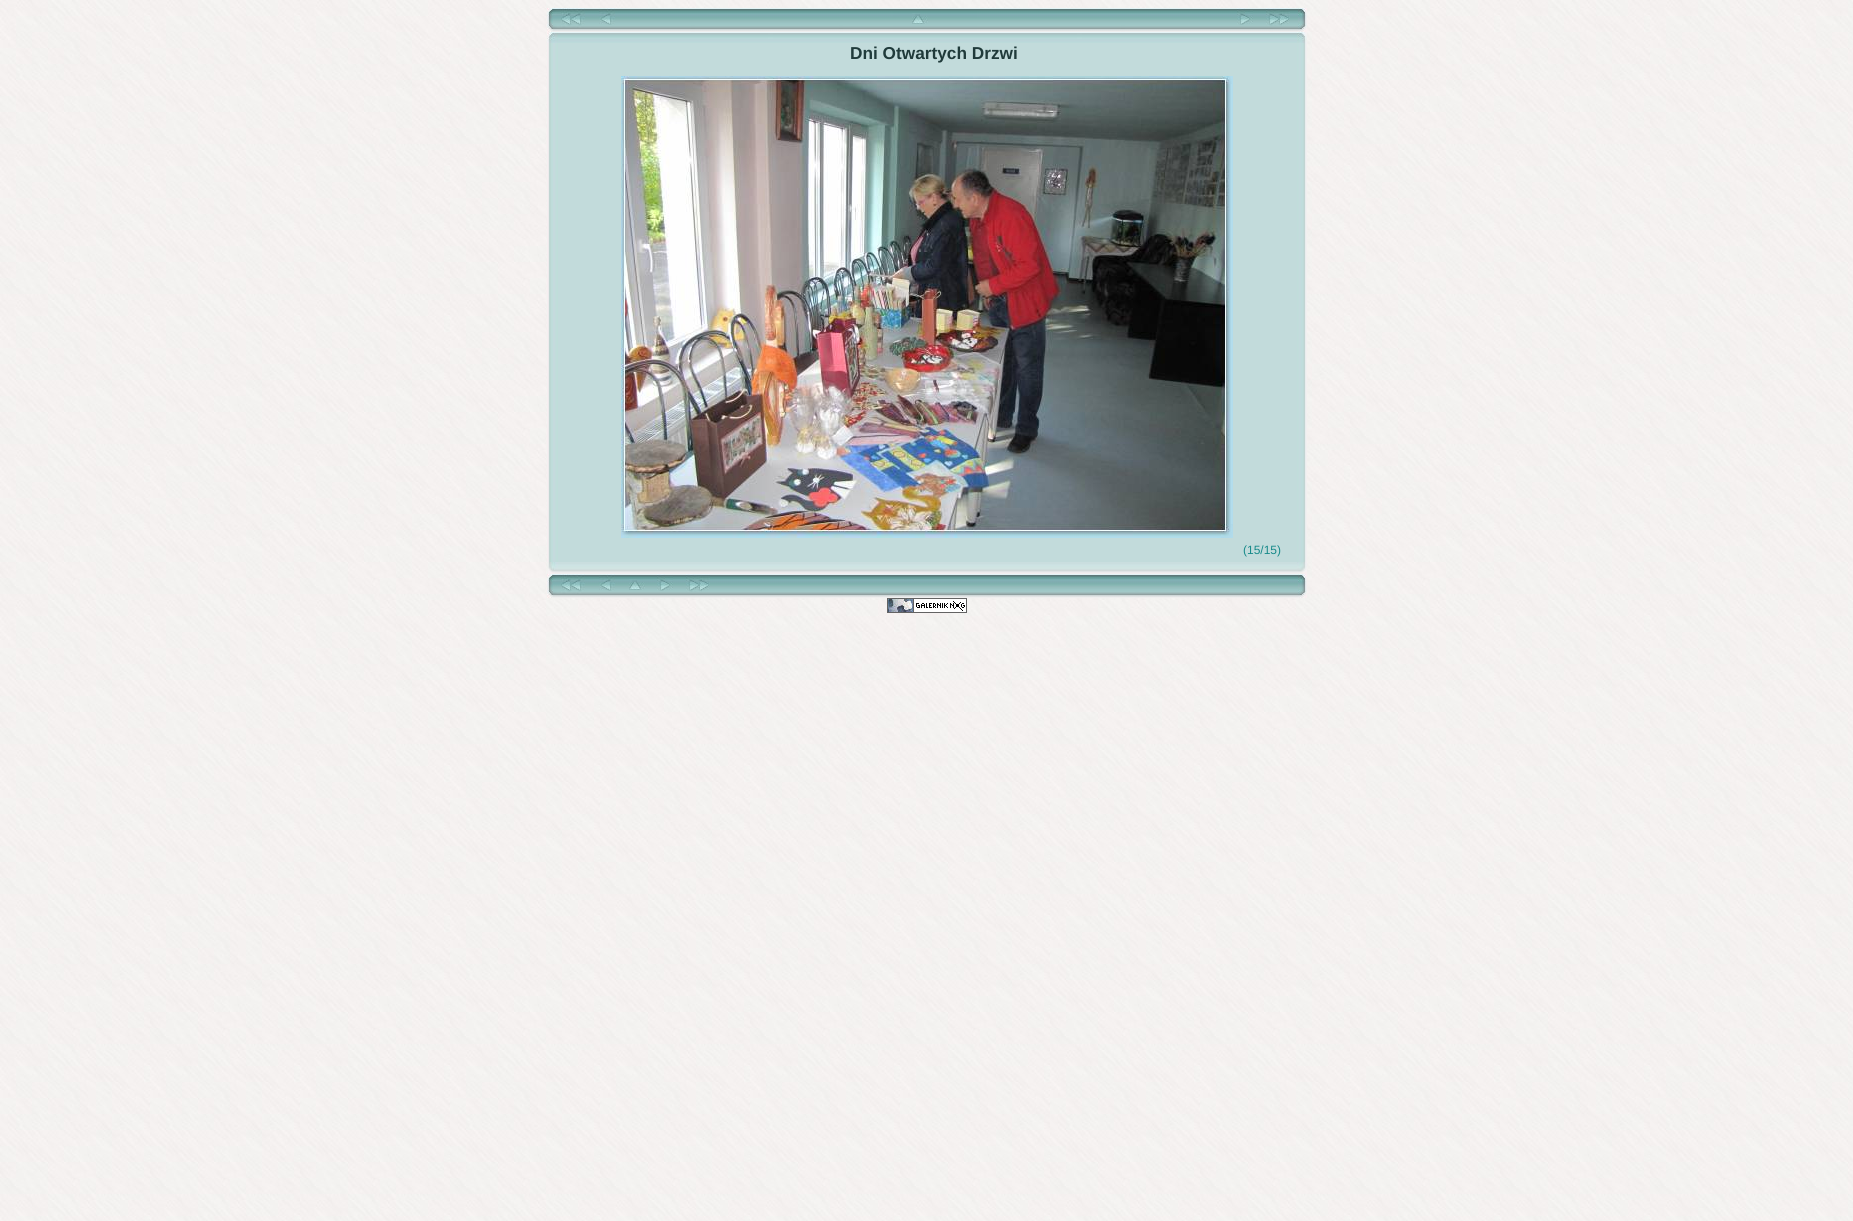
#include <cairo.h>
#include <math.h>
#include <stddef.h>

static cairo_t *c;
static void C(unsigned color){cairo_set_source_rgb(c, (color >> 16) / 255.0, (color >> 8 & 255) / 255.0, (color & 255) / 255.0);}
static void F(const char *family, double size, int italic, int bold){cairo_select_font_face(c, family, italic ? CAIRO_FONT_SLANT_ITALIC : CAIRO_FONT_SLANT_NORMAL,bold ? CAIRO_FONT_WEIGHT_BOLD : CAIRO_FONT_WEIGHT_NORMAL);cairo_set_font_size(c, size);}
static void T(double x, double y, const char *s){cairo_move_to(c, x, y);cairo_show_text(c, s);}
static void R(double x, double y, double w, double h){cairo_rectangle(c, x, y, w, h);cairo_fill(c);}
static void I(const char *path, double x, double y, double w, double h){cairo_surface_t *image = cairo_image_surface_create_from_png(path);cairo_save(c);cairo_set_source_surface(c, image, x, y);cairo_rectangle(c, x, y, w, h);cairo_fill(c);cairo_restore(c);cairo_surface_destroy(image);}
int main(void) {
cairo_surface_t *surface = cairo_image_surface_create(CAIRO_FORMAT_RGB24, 1853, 1221);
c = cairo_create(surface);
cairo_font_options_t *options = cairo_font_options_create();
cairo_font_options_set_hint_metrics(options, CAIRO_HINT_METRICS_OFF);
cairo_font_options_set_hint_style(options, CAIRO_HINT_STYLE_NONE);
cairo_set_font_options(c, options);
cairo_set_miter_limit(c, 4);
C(0xffffff);
cairo_paint(c);
I("1.png",0,0,1853,1221);
I("2.png",553,8,306,24);
I("3.png",547,8,6,24);
I("4.png",553,8,32,20);
I("5.png",599,8,16,17);
I("6.png",859,8,118,24);
I("7.png",912,13,16,11);
I("8.png",977,8,321,24);
I("9.png",1237,8,16,17);
I("10.png",1266,8,24,18);
I("11.png",1298,8,9,24);
I("12.png",547,32,11,11);
I("13.png",558,32,739,11);
I("14.png",1297,32,10,11);
I("15.png",547,43,11,519);
C(0xc2dbdb);
R(558,43,739,519);
F("Liberation Sans",17.25,0,1);
C(0x203b3b);
T(850,59,"Dni Otwartych Drzwi");
I("16.png",621,76,612,462);
F("Liberation Sans",12,0,0);
C(0x178a8a);
T(1243,554,"(15/15)");
I("17.png",1297,43,10,519);
I("18.png",548,562,10,12);
I("19.png",558,562,739,12);
I("20.png",1297,562,10,12);
I("21.png",553,574,716,24);
I("3.png",547,574,6,24);
I("4.png",553,574,32,20);
I("5.png",599,574,16,17);
I("7.png",629,579,16,11);
I("9.png",657,574,16,17);
I("10.png",686,574,24,18);
I("22.png",1269,574,29,24);
I("11.png",1298,574,9,24);
I("23.png",887,598,80,15);
cairo_surface_write_to_png(surface, "o.png");
cairo_font_options_destroy(options);
cairo_destroy(c);
cairo_surface_destroy(surface);
return 0;
}
